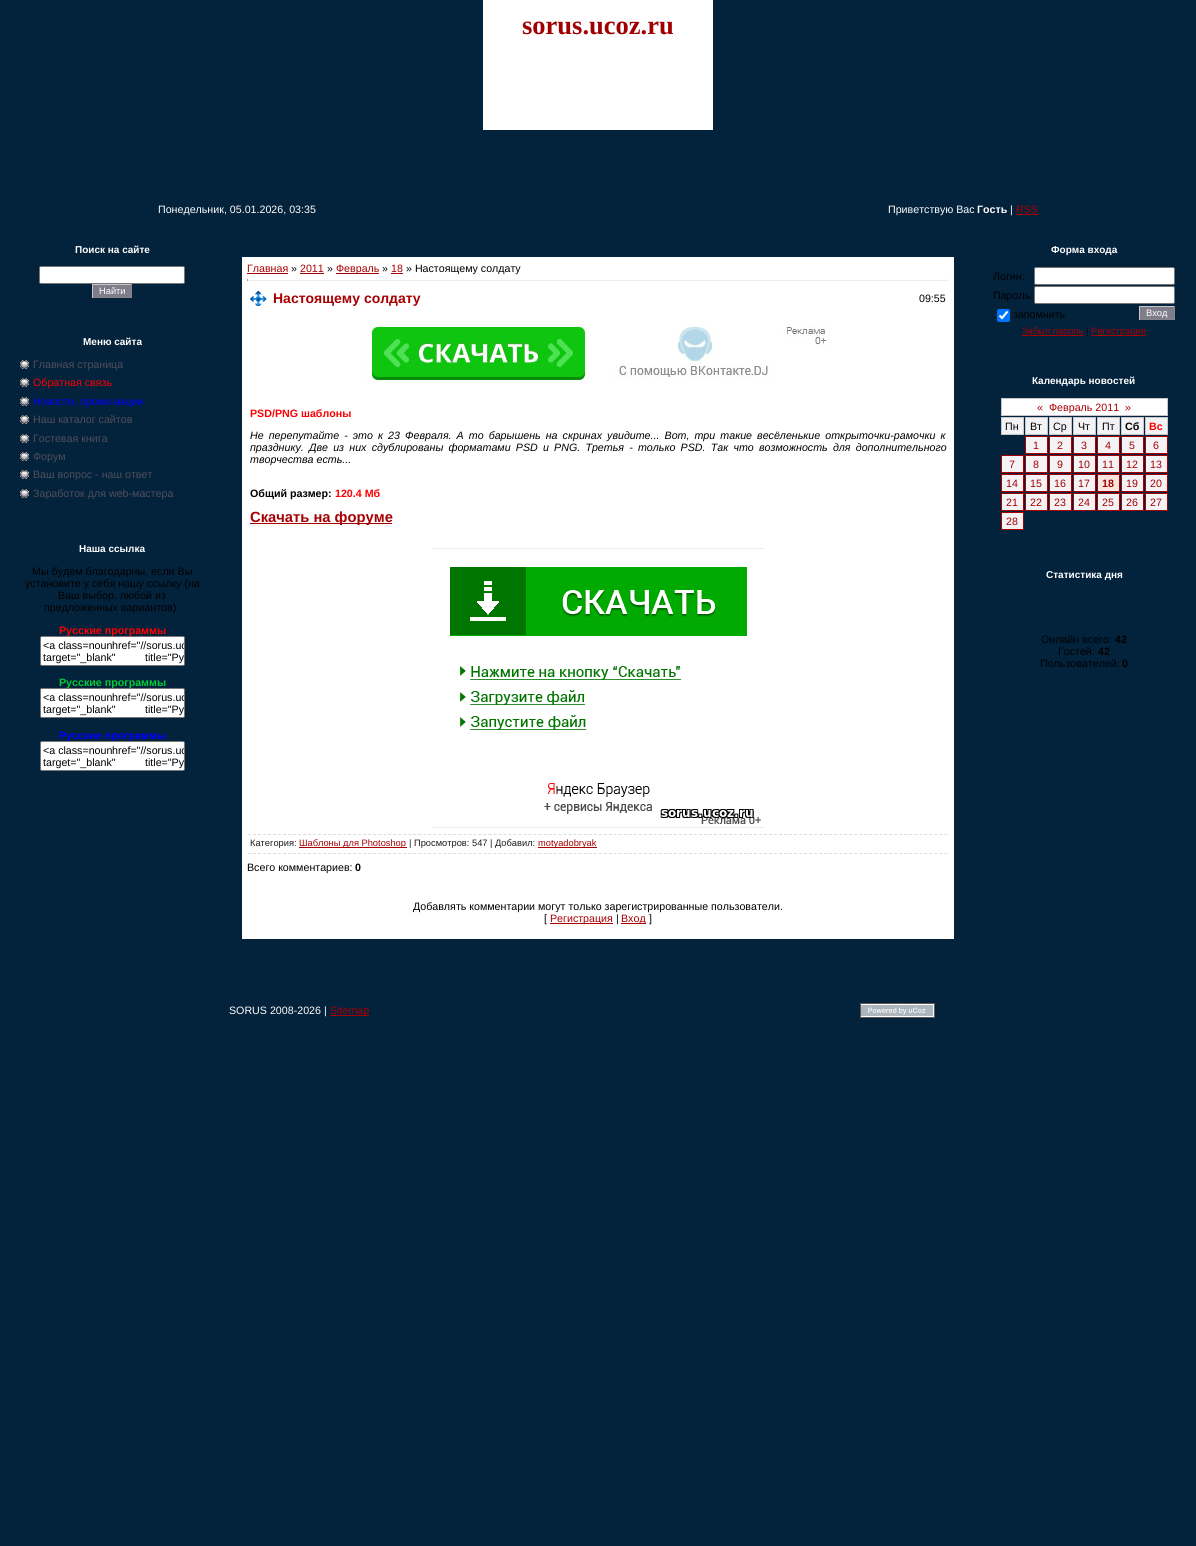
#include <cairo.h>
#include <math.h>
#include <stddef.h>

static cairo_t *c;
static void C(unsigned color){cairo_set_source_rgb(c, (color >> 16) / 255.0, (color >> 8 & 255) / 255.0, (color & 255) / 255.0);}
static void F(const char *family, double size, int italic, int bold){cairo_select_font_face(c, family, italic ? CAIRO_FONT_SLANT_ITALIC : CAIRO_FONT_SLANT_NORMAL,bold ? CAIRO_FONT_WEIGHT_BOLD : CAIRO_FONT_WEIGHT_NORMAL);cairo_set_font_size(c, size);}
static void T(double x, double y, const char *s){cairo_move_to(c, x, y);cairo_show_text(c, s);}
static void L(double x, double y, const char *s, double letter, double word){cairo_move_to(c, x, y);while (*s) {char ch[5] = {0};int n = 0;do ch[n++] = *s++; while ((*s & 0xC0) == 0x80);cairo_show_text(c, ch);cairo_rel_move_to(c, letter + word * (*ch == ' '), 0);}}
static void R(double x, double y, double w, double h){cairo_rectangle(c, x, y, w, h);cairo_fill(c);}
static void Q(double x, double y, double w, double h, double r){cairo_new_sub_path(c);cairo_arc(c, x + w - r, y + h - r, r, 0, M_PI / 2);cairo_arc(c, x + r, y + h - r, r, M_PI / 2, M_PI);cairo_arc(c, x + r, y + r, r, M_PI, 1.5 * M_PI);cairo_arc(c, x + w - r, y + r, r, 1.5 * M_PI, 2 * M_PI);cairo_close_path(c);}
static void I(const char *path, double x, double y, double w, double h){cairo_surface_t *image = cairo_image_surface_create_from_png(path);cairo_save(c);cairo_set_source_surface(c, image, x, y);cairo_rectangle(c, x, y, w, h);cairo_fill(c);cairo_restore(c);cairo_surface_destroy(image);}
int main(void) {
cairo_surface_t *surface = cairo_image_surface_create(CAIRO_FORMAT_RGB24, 1196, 1546);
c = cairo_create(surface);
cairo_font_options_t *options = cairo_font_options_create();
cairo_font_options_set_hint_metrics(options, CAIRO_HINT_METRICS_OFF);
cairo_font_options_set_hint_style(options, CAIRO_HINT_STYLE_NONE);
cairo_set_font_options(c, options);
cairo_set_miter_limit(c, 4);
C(0x03223c);
cairo_paint(c);
C(0xffffff);
R(483,0,230,130);
F("Liberation Serif",26.5,0,1);
C(0xa10003);
T(522,34,"sorus.ucoz.ru");
F("Liberation Sans",10.67,0,0);
C(0xffffff);
T(158,213,"Понедельник, 05.01.2026, 03:35");
T(888,213,"Приветствую Вас");
F("Liberation Sans",10.67,0,1);
T(977,213,"Гость");
F("Liberation Sans",10.67,0,0);
T(1010,213,"|");
C(0xa70003);
T(1016,213,"RSS");
R(1016,214,22,1);
F("Liberation Sans",10,0,1);
C(0xffffff);
T(75,253,"Поиск на сайте");
Q(39.5,266.5,145,17,1.5);
cairo_fill_preserve(c);
C(0x767676);
cairo_set_line_width(c,1);
cairo_stroke(c);
C(0x807d8a);
R(93,285,38,12);
C(0xc8c6cb);
R(92,284,40,1);
C(0x858487);
R(131,284,1,14);
R(92,297,40,1);
C(0xc8c6cb);
R(92,284,1,14);
F("Liberation Sans",9.3,0,0);
C(0xffffff);
T(99,294,"Найти");
F("Liberation Sans",10,0,1);
T(83,345,"Меню сайта");
I("1.png",20,360,9,9);
F("Liberation Sans",10.67,0,0);
C(0x504e59);
T(33,368,"Главная страница");
I("1.png",20,378,9,9);
C(0xff0000);
T(33,386,"Обратная связь");
I("1.png",20,397,9,9);
C(0x0000ff);
T(33,405,"Новости, промо-акции");
I("1.png",20,415,9,9);
C(0x504e59);
T(33,423,"Наш каталог сайтов");
I("1.png",20,434,9,9);
T(33,442,"Гостевая книга");
I("1.png",20,452,9,9);
T(33,460,"Форум");
I("1.png",20,470,9,9);
T(33,478,"Ваш вопрос - наш ответ");
I("1.png",20,489,9,9);
T(33,497,"Заработок для web-мастера");
F("Liberation Sans",10,0,1);
C(0xffffff);
T(79,552,"Наша ссылка");
F("Liberation Sans",10.67,0,0);
C(0x000000);
T(32,575,"Мы будем благодарны, если Вы");
T(25,587,"установите у себя нашу ссылку (на");
T(58,599,"Ваш выбор, любой из");
T(44,611,"предложенных вариантов):");
F("Liberation Sans",10.67,0,1);
C(0xff0000);
T(59,634,"Русские программы");
C(0xffffff);
Q(40.5,636.5,144,29,1.5);
cairo_fill_preserve(c);
C(0x767676);
cairo_stroke(c);
F("Liberation Sans",10.67,0,0);
C(0x000000);
T(43,649,"<a class=noun");
cairo_save(c);
cairo_rectangle(c,41,637,143,28);
cairo_clip(c);
T(112,649,"href=\"//sorus.uc");
cairo_restore(c);
T(43,661,"target=\"_blank\"");
T(145,661,"title=\"Ру");
F("Liberation Sans",10.67,0,1);
C(0x00cc33);
T(59,686,"Русские программы");
C(0xffffff);
Q(40.5,688.5,144,29,1.5);
cairo_fill_preserve(c);
C(0x767676);
cairo_stroke(c);
F("Liberation Sans",10.67,0,0);
C(0x000000);
T(43,701,"<a class=noun");
cairo_save(c);
cairo_rectangle(c,41,689,143,28);
cairo_clip(c);
T(112,701,"href=\"//sorus.uc");
cairo_restore(c);
T(43,713,"target=\"_blank\"");
T(145,713,"title=\"Ру");
F("Liberation Sans",10.67,0,1);
C(0x0000ff);
T(59,739,"Русские программы");
C(0xffffff);
Q(40.5,741.5,144,29,1.5);
cairo_fill_preserve(c);
C(0x767676);
cairo_stroke(c);
F("Liberation Sans",10.67,0,0);
C(0x000000);
T(43,754,"<a class=noun");
cairo_save(c);
cairo_rectangle(c,41,742,143,28);
cairo_clip(c);
T(112,754,"href=\"//sorus.uc");
cairo_restore(c);
T(43,766,"target=\"_blank\"");
T(145,766,"title=\"Ру");
C(0xffffff);
R(242,257,712,682);
C(0xa70003);
T(247,272,"Главная");
R(247,273,41,1);
C(0x000000);
T(291,272,"»");
C(0xa70003);
T(300,272,"2011");
R(300,273,24,1);
C(0x000000);
T(327,272,"»");
C(0xa70003);
R(336,273,43,1);
T(336,272,"Февраль");
C(0x000000);
T(382,272,"»");
C(0xa70003);
T(391,272,"18");
R(391,273,12,1);
C(0x000000);
T(406,272,"» Настоящему солдату");
C(0xeeeeee);
R(948,279,1,2);
R(247,280,702,1);
C(0x9f9f9f);
R(247,279,1,2);
I("2.png",250,290,17,16);
F("Liberation Sans",14,0,1);
C(0xa70003);
T(273,303,"Настоящему солдату");
F("Liberation Sans",10.67,0,0);
C(0x000000);
T(919,302,"09:55");
I("3.png",366,323,463,60);
F("Liberation Sans",10.67,0,1);
C(0xff0000);
T(250,417,"PSD/PNG шаблоны");
F("Liberation Sans",10.67,1,0);
C(0x000000);
L(250,439,"Не перепутайте - это к 23 Февраля. А то барышень на скринах увидите... Вот, три такие весёленькие открыточки-рамочки к",0,2.1);
L(250,451,"празднику. Две из них сдублированы форматами PSD и PNG. Третья - только PSD. Так что возможность для дополнительного",0,2.25);
T(250,463,"творчества есть...");
F("Liberation Sans",10.67,0,1);
T(250,497,"Общий размер:");
C(0xff0000);
T(335,497,"120.4 Мб");
C(0xa70003);
R(250,523,142,1);
F("Liberation Sans",14.75,0,1);
T(250,522,"Скачать на форуме");
I("4.png",432,548,332,280);
cairo_new_path(c);
cairo_move_to(c,248,834.5);
cairo_line_to(c,948,834.5);
C(0xdddddd);
cairo_set_dash(c,(double[]){3,2.01},2,0);
cairo_stroke(c);
cairo_new_path(c);
cairo_move_to(c,248,853.5);
cairo_line_to(c,948,853.5);
cairo_stroke(c);
F("Liberation Sans",9.3,0,0);
C(0x1a1a1a);
T(250,846,"Категория:");
C(0xa70003);
R(299,847,108,1);
T(299,846,"Шаблоны для Photoshop");
C(0x1a1a1a);
T(409,846,"| Просмотров: 547 | Добавил:");
C(0xa70003);
R(538,847,59,1);
T(538,846,"motyadobryak");
F("Liberation Sans",10.67,0,0);
C(0x000000);
T(247,871,"Всего комментариев:");
F("Liberation Sans",10.67,0,1);
T(355,871,"0");
F("Liberation Sans",10.67,0,0);
T(413,910,"Добавлять комментарии могут только зарегистрированные пользователи.");
T(544,922,"[");
C(0xa70003);
R(550,923,63,1);
T(550,922,"Регистрация");
C(0x000000);
T(616,922,"|");
C(0xa70003);
R(621,923,25,1);
T(621,922,"Вход");
C(0x000000);
T(649,922,"]");
F("Liberation Sans",10,0,1);
C(0xffffff);
T(1051,253,"Форма входа");
F("Liberation Sans",10.67,0,0);
C(0x000000);
T(993,280,"Логин:");
C(0xffffff);
Q(1034.5,267.5,140,17,1.5);
cairo_fill_preserve(c);
C(0x767676);
cairo_set_dash(c,NULL,0,0);
cairo_stroke(c);
C(0x000000);
T(993,299,"Пароль:");
C(0xffffff);
Q(1034.5,286.5,140,17,1.5);
cairo_fill_preserve(c);
C(0x767676);
cairo_stroke(c);
C(0x0075ff);
Q(997,309,13,13,2);
cairo_fill(c);
cairo_new_path(c);
cairo_move_to(c,999.5,315.5);
cairo_line_to(c,1002,318);
cairo_line_to(c,1007.5,311.5);
C(0xffffff);
cairo_set_line_width(c,2.1);
cairo_stroke(c);
C(0x000000);
T(1013,318,"запомнить");
C(0x807d8a);
R(1140,307,34,12);
C(0xc8c6cb);
R(1139,306,36,1);
C(0x858487);
R(1174,306,1,14);
R(1139,319,36,1);
C(0xc8c6cb);
R(1139,306,1,14);
F("Liberation Sans",9.3,0,0);
C(0xffffff);
T(1146,316,"Вход");
C(0xa70003);
R(1022,335,62,1);
T(1022,334,"Забыл пароль");
C(0x000000);
T(1086,334,"|");
C(0xa70003);
R(1091,335,55,1);
T(1091,334,"Регистрация");
F("Liberation Sans",10,0,1);
C(0xffffff);
T(1032,384,"Календарь новостей");
cairo_rectangle(c,1001.5,398.5,166,17);
cairo_fill_preserve(c);
C(0xc8c6cb);
cairo_set_line_width(c,1);
cairo_stroke(c);
F("Liberation Sans",10.67,0,0);
C(0xa70003);
T(1037,411,"«");
T(1049,411,"Февраль 2011");
T(1125,411,"»");
C(0xf3f2f4);
cairo_rectangle(c,1001.5,417.5,22,17);
cairo_fill_preserve(c);
C(0xc8c6cb);
cairo_stroke(c);
C(0x000000);
T(1005,430,"Пн");
C(0xf3f2f4);
cairo_rectangle(c,1025.5,417.5,22,17);
cairo_fill_preserve(c);
C(0xc8c6cb);
cairo_stroke(c);
C(0x000000);
T(1030,430,"Вт");
C(0xf3f2f4);
cairo_rectangle(c,1049.5,417.5,22,17);
cairo_fill_preserve(c);
C(0xc8c6cb);
cairo_stroke(c);
C(0x000000);
T(1053,430,"Ср");
C(0xf3f2f4);
cairo_rectangle(c,1073.5,417.5,22,17);
cairo_fill_preserve(c);
C(0xc8c6cb);
cairo_stroke(c);
C(0x000000);
T(1078,430,"Чт");
C(0xf3f2f4);
cairo_rectangle(c,1097.5,417.5,22,17);
cairo_fill_preserve(c);
C(0xc8c6cb);
cairo_stroke(c);
C(0x000000);
T(1102,430,"Пт");
C(0xf3f2f4);
cairo_rectangle(c,1121.5,417.5,22,17);
cairo_fill_preserve(c);
C(0xc8c6cb);
cairo_stroke(c);
F("Liberation Sans",10.67,0,1);
C(0x000000);
T(1125,430,"Сб");
C(0xf3f2f4);
cairo_rectangle(c,1145.5,417.5,22,17);
cairo_fill_preserve(c);
C(0xc8c6cb);
cairo_stroke(c);
C(0xff0000);
T(1149,430,"Вс");
C(0xf3f2f4);
cairo_rectangle(c,1025.5,436.5,22,17);
cairo_fill_preserve(c);
C(0xa70003);
cairo_stroke(c);
F("Liberation Sans",10.67,0,0);
T(1033,449,"1");
C(0xf3f2f4);
cairo_rectangle(c,1049.5,436.5,22,17);
cairo_fill_preserve(c);
C(0xa70003);
cairo_stroke(c);
T(1057,449,"2");
C(0xf3f2f4);
cairo_rectangle(c,1073.5,436.5,22,17);
cairo_fill_preserve(c);
C(0xa70003);
cairo_stroke(c);
T(1081,449,"3");
C(0xf3f2f4);
cairo_rectangle(c,1097.5,436.5,22,17);
cairo_fill_preserve(c);
C(0xa70003);
cairo_stroke(c);
T(1105,449,"4");
C(0xf3f2f4);
cairo_rectangle(c,1121.5,436.5,22,17);
cairo_fill_preserve(c);
C(0xa70003);
cairo_stroke(c);
T(1129,449,"5");
C(0xf3f2f4);
cairo_rectangle(c,1145.5,436.5,22,17);
cairo_fill_preserve(c);
C(0xa70003);
cairo_stroke(c);
T(1153,449,"6");
C(0xf3f2f4);
cairo_rectangle(c,1001.5,455.5,22,17);
cairo_fill_preserve(c);
C(0xa70003);
cairo_stroke(c);
T(1009,468,"7");
C(0xf3f2f4);
cairo_rectangle(c,1025.5,455.5,22,17);
cairo_fill_preserve(c);
C(0xa70003);
cairo_stroke(c);
T(1033,468,"8");
C(0xf3f2f4);
cairo_rectangle(c,1049.5,455.5,22,17);
cairo_fill_preserve(c);
C(0xa70003);
cairo_stroke(c);
T(1057,468,"9");
C(0xf3f2f4);
cairo_rectangle(c,1073.5,455.5,22,17);
cairo_fill_preserve(c);
C(0xa70003);
cairo_stroke(c);
T(1078,468,"10");
C(0xf3f2f4);
cairo_rectangle(c,1097.5,455.5,22,17);
cairo_fill_preserve(c);
C(0xa70003);
cairo_stroke(c);
T(1102,468,"11");
C(0xf3f2f4);
cairo_rectangle(c,1121.5,455.5,22,17);
cairo_fill_preserve(c);
C(0xa70003);
cairo_stroke(c);
T(1126,468,"12");
C(0xf3f2f4);
cairo_rectangle(c,1145.5,455.5,22,17);
cairo_fill_preserve(c);
C(0xa70003);
cairo_stroke(c);
T(1150,468,"13");
C(0xf3f2f4);
cairo_rectangle(c,1001.5,474.5,22,17);
cairo_fill_preserve(c);
C(0xa70003);
cairo_stroke(c);
T(1006,487,"14");
C(0xf3f2f4);
cairo_rectangle(c,1025.5,474.5,22,17);
cairo_fill_preserve(c);
C(0xa70003);
cairo_stroke(c);
T(1030,487,"15");
C(0xf3f2f4);
cairo_rectangle(c,1049.5,474.5,22,17);
cairo_fill_preserve(c);
C(0xa70003);
cairo_stroke(c);
T(1054,487,"16");
C(0xf3f2f4);
cairo_rectangle(c,1073.5,474.5,22,17);
cairo_fill_preserve(c);
C(0xa70003);
cairo_stroke(c);
T(1078,487,"17");
C(0xf8e6df);
cairo_rectangle(c,1097.5,474.5,22,17);
cairo_fill_preserve(c);
C(0xa70003);
cairo_stroke(c);
F("Liberation Sans",10.67,0,1);
T(1102,487,"18");
C(0xf3f2f4);
cairo_rectangle(c,1121.5,474.5,22,17);
cairo_fill_preserve(c);
C(0xa70003);
cairo_stroke(c);
F("Liberation Sans",10.67,0,0);
T(1126,487,"19");
C(0xf3f2f4);
cairo_rectangle(c,1145.5,474.5,22,17);
cairo_fill_preserve(c);
C(0xa70003);
cairo_stroke(c);
T(1150,487,"20");
C(0xf3f2f4);
cairo_rectangle(c,1001.5,493.5,22,17);
cairo_fill_preserve(c);
C(0xa70003);
cairo_stroke(c);
T(1006,506,"21");
C(0xf3f2f4);
cairo_rectangle(c,1025.5,493.5,22,17);
cairo_fill_preserve(c);
C(0xa70003);
cairo_stroke(c);
T(1030,506,"22");
C(0xf3f2f4);
cairo_rectangle(c,1049.5,493.5,22,17);
cairo_fill_preserve(c);
C(0xa70003);
cairo_stroke(c);
T(1054,506,"23");
C(0xf3f2f4);
cairo_rectangle(c,1073.5,493.5,22,17);
cairo_fill_preserve(c);
C(0xa70003);
cairo_stroke(c);
T(1078,506,"24");
C(0xf3f2f4);
cairo_rectangle(c,1097.5,493.5,22,17);
cairo_fill_preserve(c);
C(0xa70003);
cairo_stroke(c);
T(1102,506,"25");
C(0xf3f2f4);
cairo_rectangle(c,1121.5,493.5,22,17);
cairo_fill_preserve(c);
C(0xa70003);
cairo_stroke(c);
T(1126,506,"26");
C(0xf3f2f4);
cairo_rectangle(c,1145.5,493.5,22,17);
cairo_fill_preserve(c);
C(0xa70003);
cairo_stroke(c);
T(1150,506,"27");
C(0xf3f2f4);
cairo_rectangle(c,1001.5,512.5,22,17);
cairo_fill_preserve(c);
C(0xa70003);
cairo_stroke(c);
T(1006,525,"28");
F("Liberation Sans",10,0,1);
C(0xffffff);
T(1046,578,"Статистика дня");
F("Liberation Sans",10.67,0,0);
C(0x000000);
T(1041,643,"Онлайн всего:");
F("Liberation Sans",10.67,0,1);
T(1115,643,"42");
F("Liberation Sans",10.67,0,0);
T(1058,655,"Гостей:");
F("Liberation Sans",10.67,0,1);
T(1098,655,"42");
F("Liberation Sans",10.67,0,0);
T(1040,667,"Пользователей:");
F("Liberation Sans",10.67,0,1);
T(1122,667,"0");
F("Liberation Sans",10.67,0,0);
C(0xffffff);
T(229,1014,"SORUS 2008-2026 |");
C(0xa70003);
R(330,1015,39,1);
T(330,1014,"Sitemap");
I("5.png",860,1003,75,15);
cairo_surface_write_to_png(surface, "o.png");
cairo_font_options_destroy(options);
cairo_destroy(c);
cairo_surface_destroy(surface);
return 0;
}
